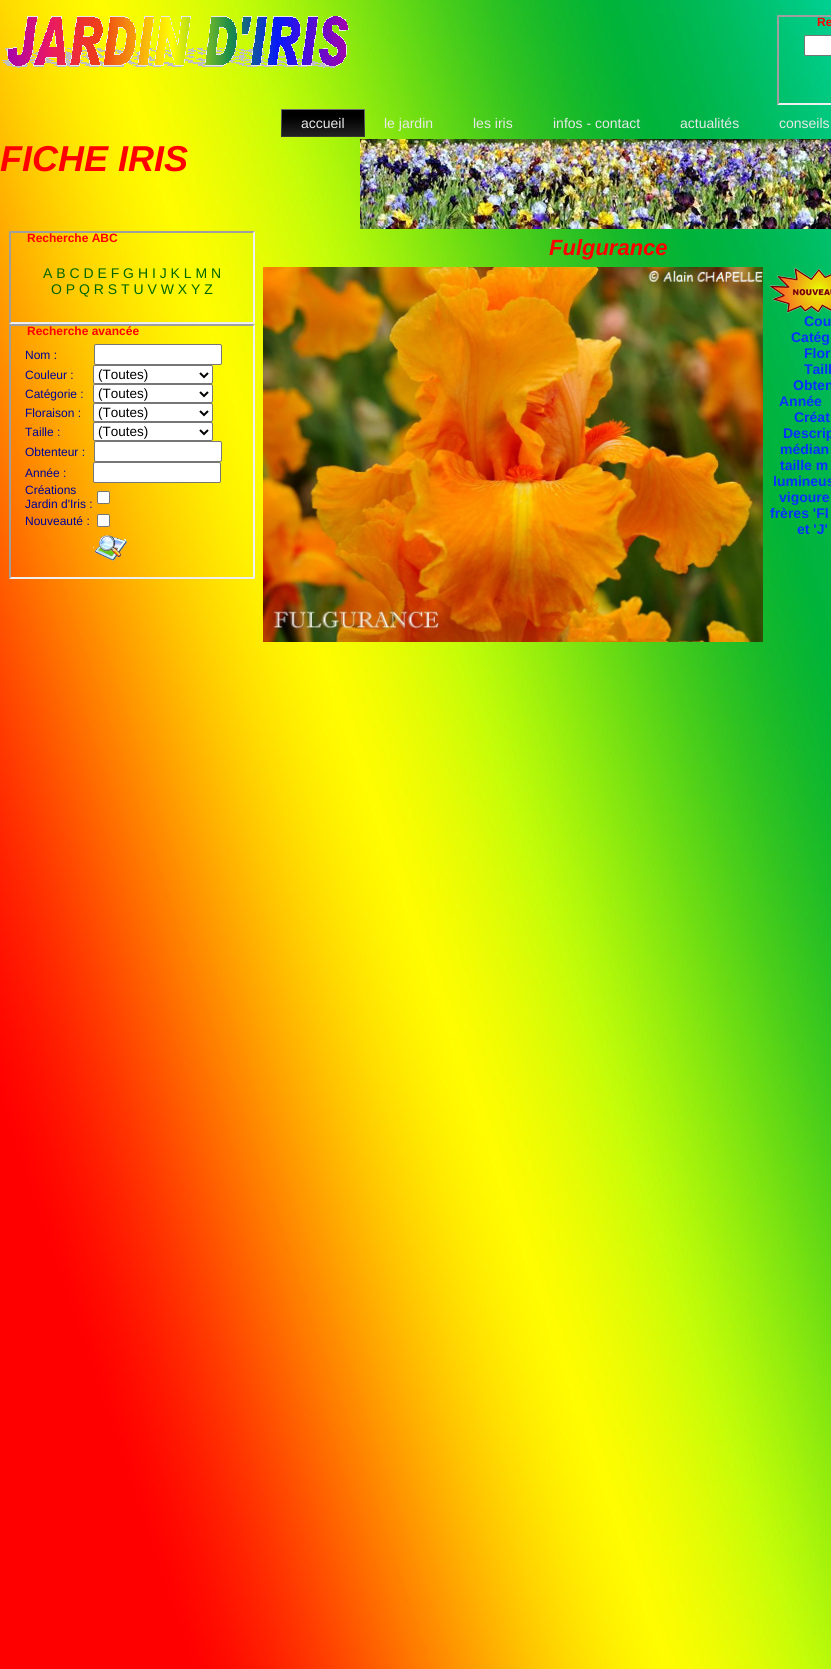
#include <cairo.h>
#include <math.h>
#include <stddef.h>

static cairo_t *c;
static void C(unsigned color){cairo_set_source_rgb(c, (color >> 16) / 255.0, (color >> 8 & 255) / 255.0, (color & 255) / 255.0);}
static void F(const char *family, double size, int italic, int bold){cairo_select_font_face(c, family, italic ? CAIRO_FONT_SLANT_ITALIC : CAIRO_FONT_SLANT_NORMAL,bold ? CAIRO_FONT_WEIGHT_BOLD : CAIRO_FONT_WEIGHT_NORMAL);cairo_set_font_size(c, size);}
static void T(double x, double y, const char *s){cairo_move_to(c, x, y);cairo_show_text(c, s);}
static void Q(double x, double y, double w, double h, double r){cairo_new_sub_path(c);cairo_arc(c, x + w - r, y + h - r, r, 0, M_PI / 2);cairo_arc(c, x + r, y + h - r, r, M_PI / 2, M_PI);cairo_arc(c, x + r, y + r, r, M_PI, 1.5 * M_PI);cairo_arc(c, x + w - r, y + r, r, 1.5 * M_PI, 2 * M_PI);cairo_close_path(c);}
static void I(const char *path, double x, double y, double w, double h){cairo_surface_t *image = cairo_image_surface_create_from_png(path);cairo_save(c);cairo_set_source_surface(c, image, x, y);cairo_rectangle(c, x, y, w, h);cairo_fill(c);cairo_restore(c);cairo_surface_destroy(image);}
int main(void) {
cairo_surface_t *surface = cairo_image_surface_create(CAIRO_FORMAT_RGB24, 831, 1669);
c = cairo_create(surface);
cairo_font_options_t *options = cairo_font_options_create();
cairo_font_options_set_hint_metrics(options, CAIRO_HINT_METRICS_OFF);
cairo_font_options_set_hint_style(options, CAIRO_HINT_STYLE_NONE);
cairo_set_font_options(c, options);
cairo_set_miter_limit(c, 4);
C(0xffffff);
cairo_paint(c);
I("1.png",0,0,831,1669);
I("2.png",2,16,347,52);
C(0x9f9f9f);
cairo_new_path(c);
cairo_move_to(c,777,15);
cairo_line_to(c,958,15);
cairo_line_to(c,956,17);
cairo_line_to(c,779,17);
cairo_close_path(c);
cairo_fill(c);
C(0xefefef);
cairo_new_path(c);
cairo_move_to(c,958,105);
cairo_line_to(c,777,105);
cairo_line_to(c,779,103);
cairo_line_to(c,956,103);
cairo_close_path(c);
cairo_fill(c);
C(0x9f9f9f);
cairo_new_path(c);
cairo_move_to(c,777,105);
cairo_line_to(c,777,15);
cairo_line_to(c,779,17);
cairo_line_to(c,779,103);
cairo_close_path(c);
cairo_fill(c);
F("Liberation Sans",12,0,1);
C(0xff0000);
T(817,26,"Re");
C(0xffffff);
Q(804.5,35.5,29,20,1.5);
cairo_fill_preserve(c);
C(0x767676);
cairo_set_line_width(c,1);
cairo_stroke(c);
I("3.png",356,109,9,28);
I("4.png",281,109,75,28);
F("Liberation Sans",14,0,0);
C(0xe8e8e8);
T(301,128,"accueil");
T(384,128,"le jardin");
T(473,128,"les iris");
T(553,128,"infos - contact");
T(680,128,"actualités");
T(779,128,"conseils");
F("Liberation Sans",36,1,1);
C(0xff0000);
T(0,171,"FICHE IRIS");
I("5.png",360,139,471,90);
C(0x9f9f9f);
cairo_new_path(c);
cairo_move_to(c,9,231);
cairo_line_to(c,255,231);
cairo_line_to(c,253,233);
cairo_line_to(c,11,233);
cairo_close_path(c);
cairo_fill(c);
C(0xefefef);
cairo_new_path(c);
cairo_move_to(c,255,231);
cairo_line_to(c,255,324);
cairo_line_to(c,253,322);
cairo_line_to(c,253,233);
cairo_close_path(c);
cairo_fill(c);
cairo_new_path(c);
cairo_move_to(c,255,324);
cairo_line_to(c,9,324);
cairo_line_to(c,11,322);
cairo_line_to(c,253,322);
cairo_close_path(c);
cairo_fill(c);
C(0x9f9f9f);
cairo_new_path(c);
cairo_move_to(c,9,324);
cairo_line_to(c,9,231);
cairo_line_to(c,11,233);
cairo_line_to(c,11,322);
cairo_close_path(c);
cairo_fill(c);
F("Liberation Sans",12,0,1);
C(0xff0000);
T(27,242,"Recherche ABC");
F("Liberation Sans",14,0,0);
C(0x006600);
T(43,278,"A B C D E F G H I J K L M N");
T(51,294,"O P Q R S T U V W X Y Z");
C(0x9f9f9f);
cairo_new_path(c);
cairo_move_to(c,9,324);
cairo_line_to(c,255,324);
cairo_line_to(c,253,326);
cairo_line_to(c,11,326);
cairo_close_path(c);
cairo_fill(c);
C(0xefefef);
cairo_new_path(c);
cairo_move_to(c,255,324);
cairo_line_to(c,255,579);
cairo_line_to(c,253,577);
cairo_line_to(c,253,326);
cairo_close_path(c);
cairo_fill(c);
cairo_new_path(c);
cairo_move_to(c,255,579);
cairo_line_to(c,9,579);
cairo_line_to(c,11,577);
cairo_line_to(c,253,577);
cairo_close_path(c);
cairo_fill(c);
C(0x9f9f9f);
cairo_new_path(c);
cairo_move_to(c,9,579);
cairo_line_to(c,9,324);
cairo_line_to(c,11,326);
cairo_line_to(c,11,577);
cairo_close_path(c);
cairo_fill(c);
F("Liberation Sans",12,0,1);
C(0xff0000);
T(27,335,"Recherche avancée");
F("Liberation Sans",12,0,0);
C(0x000099);
T(25,359,"Nom :");
C(0xffffff);
Q(94.5,344.5,127,20,1.5);
cairo_fill_preserve(c);
C(0x767676);
cairo_stroke(c);
C(0x000099);
T(25,379,"Couleur :");
C(0xffffff);
Q(93.5,365.5,119,18,1.5);
cairo_fill_preserve(c);
C(0x767676);
cairo_stroke(c);
cairo_new_path(c);
cairo_move_to(c,200,373);
cairo_line_to(c,204,377);
cairo_line_to(c,208,373);
C(0x000000);
cairo_set_line_width(c,2);
cairo_stroke(c);
F("Liberation Sans",13.5,0,0);
T(98,379,"(Toutes)");
F("Liberation Sans",12,0,0);
C(0x000099);
T(25,398,"Catégorie :");
C(0xffffff);
Q(93.5,384.5,119,18,1.5);
cairo_fill_preserve(c);
C(0x767676);
cairo_set_line_width(c,1);
cairo_stroke(c);
cairo_new_path(c);
cairo_move_to(c,200,392);
cairo_line_to(c,204,396);
cairo_line_to(c,208,392);
C(0x000000);
cairo_set_line_width(c,2);
cairo_stroke(c);
F("Liberation Sans",13.5,0,0);
T(98,398,"(Toutes)");
F("Liberation Sans",12,0,0);
C(0x000099);
T(25,417,"Floraison :");
C(0xffffff);
Q(93.5,403.5,119,18,1.5);
cairo_fill_preserve(c);
C(0x767676);
cairo_set_line_width(c,1);
cairo_stroke(c);
cairo_new_path(c);
cairo_move_to(c,200,411);
cairo_line_to(c,204,415);
cairo_line_to(c,208,411);
C(0x000000);
cairo_set_line_width(c,2);
cairo_stroke(c);
F("Liberation Sans",13.5,0,0);
T(98,417,"(Toutes)");
F("Liberation Sans",12,0,0);
C(0x000099);
T(25,436,"Taille :");
C(0xffffff);
Q(93.5,422.5,119,18,1.5);
cairo_fill_preserve(c);
C(0x767676);
cairo_set_line_width(c,1);
cairo_stroke(c);
cairo_new_path(c);
cairo_move_to(c,200,430);
cairo_line_to(c,204,434);
cairo_line_to(c,208,430);
C(0x000000);
cairo_set_line_width(c,2);
cairo_stroke(c);
F("Liberation Sans",13.5,0,0);
T(98,436,"(Toutes)");
F("Liberation Sans",12,0,0);
C(0x000099);
T(25,456,"Obtenteur :");
C(0xffffff);
Q(94.5,441.5,127,20,1.5);
cairo_fill_preserve(c);
C(0x767676);
cairo_set_line_width(c,1);
cairo_stroke(c);
C(0x000099);
T(25,477,"Année :");
C(0xffffff);
Q(93.5,462.5,127,20,1.5);
cairo_fill_preserve(c);
C(0x767676);
cairo_stroke(c);
C(0x000099);
T(25,494,"Créations");
T(25,508,"Jardin d'Iris :");
C(0xffffff);
Q(97.5,491.5,12,12,1.5);
cairo_fill_preserve(c);
C(0x767676);
cairo_stroke(c);
C(0x000099);
T(25,525,"Nouveauté :");
C(0xffffff);
Q(97.5,514.5,12,12,1.5);
cairo_fill_preserve(c);
C(0x767676);
cairo_stroke(c);
I("6.png",93,535,34,26);
F("Liberation Sans",22,1,1);
C(0xff0000);
T(549,255,"Fulgurance");
I("7.png",263,267,500,375);
I("8.png",769,267,62,46);
F("Liberation Sans",14,0,1);
C(0x0033ff);
T(804,326,"Cou");
T(791,342,"Catég");
T(804,358,"Flor");
T(804,374,"Taill");
T(793,390,"Obten");
T(779,406,"Année");
T(794,422,"Créat");
T(783,438,"Descrip");
T(780,454,"médian");
T(780,470,"taille m");
T(773,486,"lumineus");
T(779,502,"vigoure");
T(770,518,"frères 'Fl");
T(797,534,"et 'J'");
cairo_surface_write_to_png(surface, "o.png");
cairo_font_options_destroy(options);
cairo_destroy(c);
cairo_surface_destroy(surface);
return 0;
}
